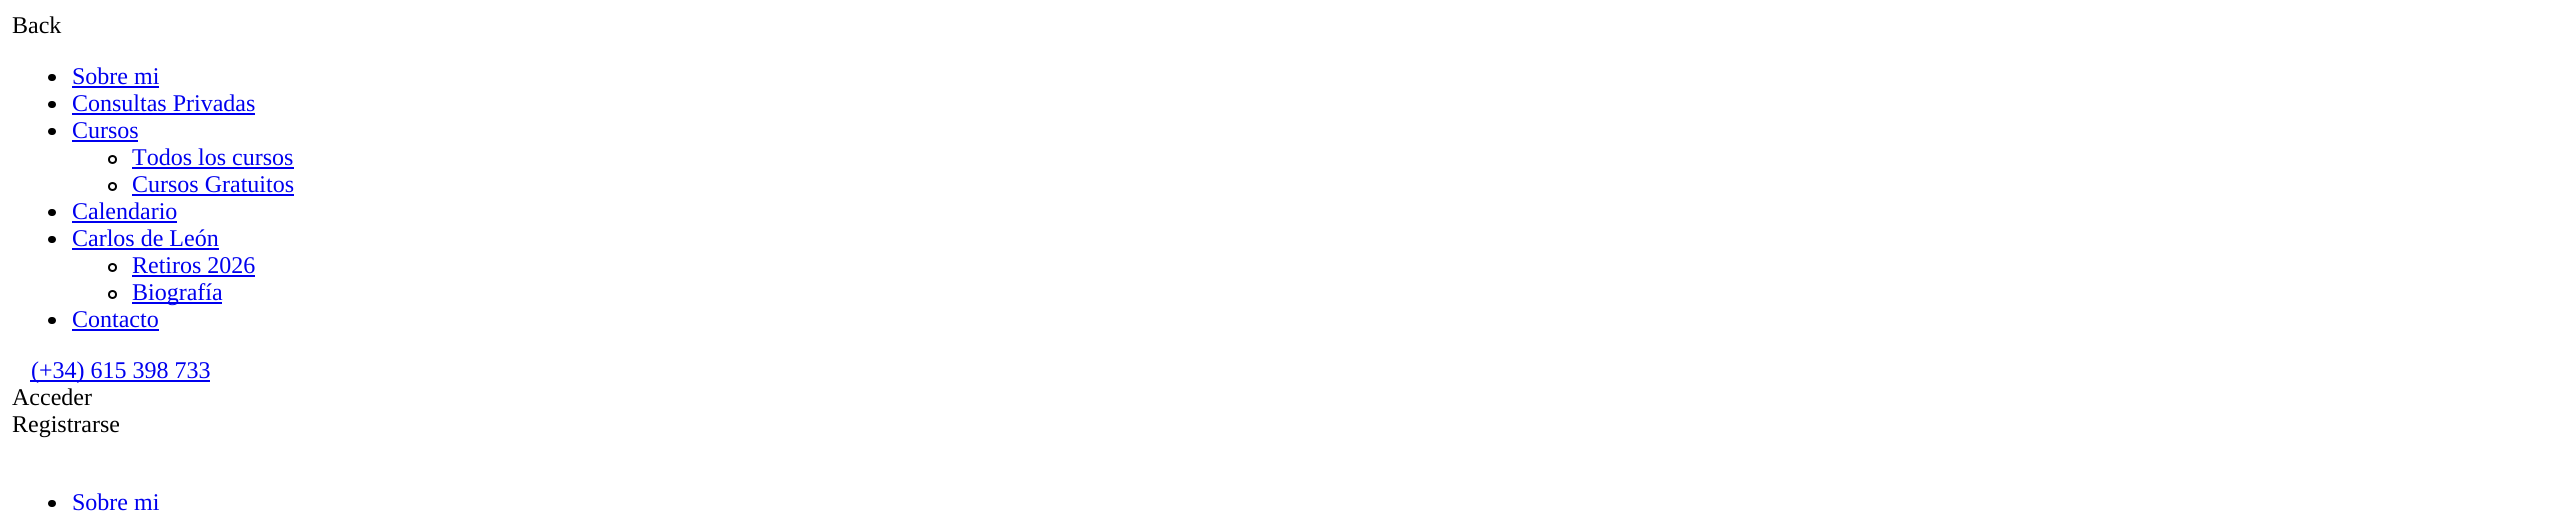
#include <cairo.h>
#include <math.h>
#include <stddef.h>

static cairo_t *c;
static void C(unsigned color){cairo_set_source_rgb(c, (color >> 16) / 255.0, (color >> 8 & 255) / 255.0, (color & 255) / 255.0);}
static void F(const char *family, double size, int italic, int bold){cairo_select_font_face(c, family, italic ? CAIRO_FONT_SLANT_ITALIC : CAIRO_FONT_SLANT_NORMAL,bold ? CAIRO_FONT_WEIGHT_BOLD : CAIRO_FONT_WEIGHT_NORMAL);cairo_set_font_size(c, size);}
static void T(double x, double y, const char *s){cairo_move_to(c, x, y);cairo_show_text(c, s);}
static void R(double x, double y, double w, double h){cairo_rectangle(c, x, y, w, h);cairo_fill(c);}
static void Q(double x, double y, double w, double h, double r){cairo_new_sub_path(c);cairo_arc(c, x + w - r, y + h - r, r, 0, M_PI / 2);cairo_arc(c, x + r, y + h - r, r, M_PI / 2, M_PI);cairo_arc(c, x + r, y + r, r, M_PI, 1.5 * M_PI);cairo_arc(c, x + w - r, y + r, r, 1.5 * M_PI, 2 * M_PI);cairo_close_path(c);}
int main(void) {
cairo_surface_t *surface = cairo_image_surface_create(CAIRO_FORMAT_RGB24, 2575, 512);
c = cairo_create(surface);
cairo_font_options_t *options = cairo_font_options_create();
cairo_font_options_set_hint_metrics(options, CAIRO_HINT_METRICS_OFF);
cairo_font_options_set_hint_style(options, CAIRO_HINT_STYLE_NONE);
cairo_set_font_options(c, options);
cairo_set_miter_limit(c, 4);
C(0xffffff);
cairo_paint(c);
F("Liberation Serif",24,0,0);
C(0x000000);
T(12,33,"Back");
Q(48,74,8,7,3.5);
cairo_fill(c);
C(0x0000ee);
T(72,84,"Sobre mi");
R(72,86,87,2);
C(0x000000);
Q(48,101,8,7,3.5);
cairo_fill(c);
C(0x0000ee);
T(72,111,"Consultas Privadas");
R(72,113,183,2);
C(0x000000);
Q(48,128,8,7,3.5);
cairo_fill(c);
C(0x0000ee);
T(72,138,"Cursos");
R(72,140,66,2);
cairo_new_path(c);
cairo_arc(c,112.5,159.5,3.5,0,2 * M_PI);
C(0x000000);
cairo_stroke(c);
C(0x0000ee);
T(132,165,"Todos los cursos");
R(132,167,162,2);
cairo_new_path(c);
cairo_arc(c,112.5,186.5,3.5,0,2 * M_PI);
C(0x000000);
cairo_stroke(c);
C(0x0000ee);
T(132,192,"Cursos Gratuitos");
R(132,194,162,2);
C(0x000000);
Q(48,209,8,7,3.5);
cairo_fill(c);
C(0x0000ee);
T(72,219,"Calendario");
R(72,221,105,2);
C(0x000000);
Q(48,236,8,7,3.5);
cairo_fill(c);
C(0x0000ee);
T(72,246,"Carlos de León");
R(72,248,147,2);
cairo_new_path(c);
cairo_arc(c,112.5,267.5,3.5,0,2 * M_PI);
C(0x000000);
cairo_stroke(c);
C(0x0000ee);
T(132,273,"Retiros 2026");
R(132,275,123,2);
cairo_new_path(c);
cairo_arc(c,112.5,294.5,3.5,0,2 * M_PI);
C(0x000000);
cairo_stroke(c);
C(0x0000ee);
R(132,302,90,2);
T(132,300,"Biografía");
C(0x000000);
Q(48,317,8,7,3.5);
cairo_fill(c);
C(0x0000ee);
T(72,327,"Contacto");
R(72,329,87,2);
R(30,380,180,2);
T(31,378,"(+34) 615 398 733");
C(0x000000);
T(12,405,"Acceder");
T(12,432,"Registrarse");
Q(48,500,8,7,3.5);
cairo_fill(c);
C(0x0000ee);
T(72,510,"Sobre mi");
cairo_surface_write_to_png(surface, "o.png");
cairo_font_options_destroy(options);
cairo_destroy(c);
cairo_surface_destroy(surface);
return 0;
}
